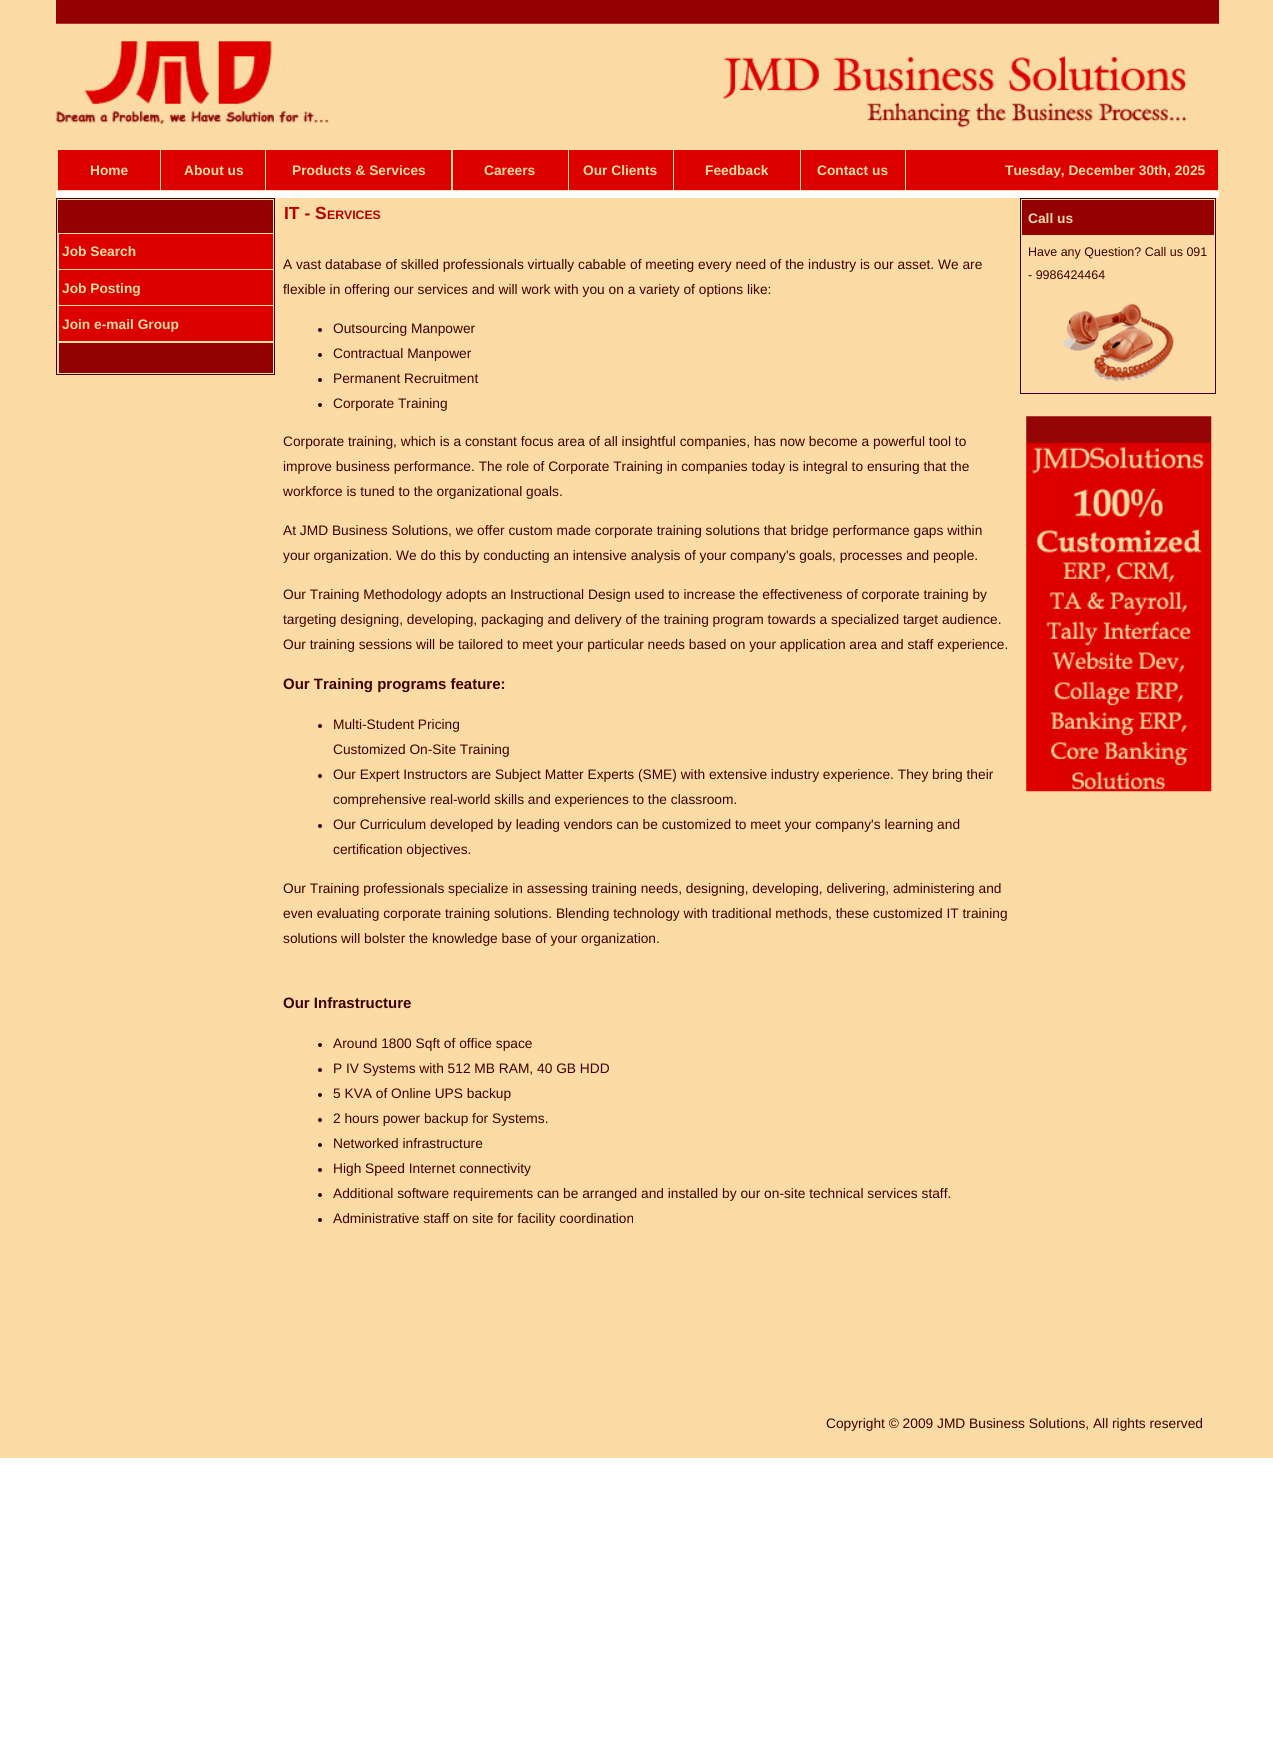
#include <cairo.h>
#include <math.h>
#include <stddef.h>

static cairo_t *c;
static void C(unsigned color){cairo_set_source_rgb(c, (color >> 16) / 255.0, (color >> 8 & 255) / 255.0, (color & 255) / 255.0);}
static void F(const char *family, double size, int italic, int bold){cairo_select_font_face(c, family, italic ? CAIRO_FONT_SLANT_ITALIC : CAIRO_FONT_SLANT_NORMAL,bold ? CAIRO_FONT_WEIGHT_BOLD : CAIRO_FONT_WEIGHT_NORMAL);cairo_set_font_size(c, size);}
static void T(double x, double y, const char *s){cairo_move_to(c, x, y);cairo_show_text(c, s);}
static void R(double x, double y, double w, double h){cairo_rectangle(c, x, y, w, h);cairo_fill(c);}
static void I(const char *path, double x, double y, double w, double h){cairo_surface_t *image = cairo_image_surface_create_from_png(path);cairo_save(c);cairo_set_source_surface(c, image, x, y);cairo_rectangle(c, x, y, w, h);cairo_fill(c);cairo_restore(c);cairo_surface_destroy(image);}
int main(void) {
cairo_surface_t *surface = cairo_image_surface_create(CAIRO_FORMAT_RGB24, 1273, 1761);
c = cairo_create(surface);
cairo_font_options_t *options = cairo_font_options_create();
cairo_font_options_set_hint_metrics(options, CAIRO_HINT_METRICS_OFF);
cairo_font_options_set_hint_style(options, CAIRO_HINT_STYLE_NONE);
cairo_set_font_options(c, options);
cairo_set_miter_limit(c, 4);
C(0xffffff);
cairo_paint(c);
C(0xfddba4);
R(0,0,1273,1458);
C(0x950000);
R(56,0,1163,24);
I("1.png",56,23,1163,111);
C(0xdd0000);
R(58,150,102,40);
F("Liberation Sans",13.75,0,1);
C(0xfddba4);
T(90,175,"Home");
C(0xdd0000);
R(161,150,104,40);
C(0xfddba4);
T(184,175,"About us");
C(0xdd0000);
R(266,150,185,40);
C(0xfddba4);
T(292,175,"Products & Services");
C(0xdd0000);
R(453,150,115,40);
C(0xfddba4);
T(484,175,"Careers");
C(0xdd0000);
R(569,150,104,40);
C(0xfddba4);
T(583,175,"Our Clients");
C(0xdd0000);
R(674,150,126,40);
C(0xfddba4);
T(705,175,"Feedback");
C(0xdd0000);
R(801,150,104,40);
C(0xfddba4);
T(817,175,"Contact us");
C(0xdd0000);
R(906,150,312,40);
C(0xfddba4);
T(1005,175,"Tuesday, December 30th, 2025");
C(0xffffff);
R(56,191,1163,7);
cairo_rectangle(c,56.5,198.5,218,176);
C(0x400000);
cairo_set_line_width(c,1);
cairo_stroke(c);
C(0x950000);
R(58,200,215,33);
C(0xdd0000);
R(59,234,214,35);
C(0xfddba4);
T(62,256,"Job Search");
C(0xdd0000);
R(59,270,214,35);
C(0xfddba4);
T(62,293,"Job Posting");
C(0xdd0000);
R(59,306,214,35);
C(0xfddba4);
T(62,329,"Join e-mail Group");
C(0x930202);
R(59,343,214,30);
F("Liberation Sans",17.5,0,1);
C(0xb70000);
T(284,219,"IT - S");
F("Liberation Sans",12.25,0,1);
T(327,219,"ERVICES");
F("Liberation Sans",13.75,0,0);
C(0x400000);
T(283,269,"A vast database of skilled professionals virtually cabable of meeting every need of the industry is our asset. We are");
T(283,294,"flexible in offering our services and will work with you on a variety of options like:");
cairo_new_path(c);
cairo_arc(c,320,330,2,0,2 * M_PI);
cairo_fill(c);
T(333,333,"Outsourcing Manpower");
cairo_new_path(c);
cairo_arc(c,320,355,2,0,2 * M_PI);
cairo_fill(c);
T(333,358,"Contractual Manpower");
cairo_new_path(c);
cairo_arc(c,320,380,2,0,2 * M_PI);
cairo_fill(c);
T(333,383,"Permanent Recruitment");
cairo_new_path(c);
cairo_arc(c,320,405,2,0,2 * M_PI);
cairo_fill(c);
T(333,408,"Corporate Training");
T(283,446,"Corporate training, which is a constant focus area of all insightful companies, has now become a powerful tool to");
T(283,471,"improve business performance. The role of Corporate Training in companies today is integral to ensuring that the");
T(283,496,"workforce is tuned to the organizational goals.");
T(283,535,"At JMD Business Solutions, we offer custom made corporate training solutions that bridge performance gaps within");
T(283,560,"your organization. We do this by conducting an intensive analysis of your company's goals, processes and people.");
T(283,599,"Our Training Methodology adopts an Instructional Design used to increase the effectiveness of corporate training by");
T(283,624,"targeting designing, developing, packaging and delivery of the training program towards a specialized target audience.");
T(283,649,"Our training sessions will be tailored to meet your particular needs based on your application area and staff experience.");
F("Liberation Sans",15,0,1);
T(283,689,"Our Training programs feature:");
cairo_new_path(c);
cairo_arc(c,320,726,2,0,2 * M_PI);
cairo_fill(c);
F("Liberation Sans",13.75,0,0);
T(333,729,"Multi-Student Pricing");
T(333,754,"Customized On-Site Training");
cairo_new_path(c);
cairo_arc(c,320,776,2,0,2 * M_PI);
cairo_fill(c);
T(333,779,"Our Expert Instructors are Subject Matter Experts (SME) with extensive industry experience. They bring their");
T(333,804,"comprehensive real-world skills and experiences to the classroom.");
cairo_new_path(c);
cairo_arc(c,320,826,2,0,2 * M_PI);
cairo_fill(c);
T(333,829,"Our Curriculum developed by leading vendors can be customized to meet your company's learning and");
T(333,854,"certification objectives.");
T(283,893,"Our Training professionals specialize in assessing training needs, designing, developing, delivering, administering and");
T(283,918,"even evaluating corporate training solutions. Blending technology with traditional methods, these customized IT training");
T(283,943,"solutions will bolster the knowledge base of your organization.");
F("Liberation Sans",15,0,1);
T(283,1008,"Our Infrastructure");
cairo_new_path(c);
cairo_arc(c,320,1045,2,0,2 * M_PI);
cairo_fill(c);
F("Liberation Sans",13.75,0,0);
T(333,1048,"Around 1800 Sqft of office space");
cairo_new_path(c);
cairo_arc(c,320,1070,2,0,2 * M_PI);
cairo_fill(c);
T(333,1073,"P IV Systems with 512 MB RAM, 40 GB HDD");
cairo_new_path(c);
cairo_arc(c,320,1095,2,0,2 * M_PI);
cairo_fill(c);
T(333,1098,"5 KVA of Online UPS backup");
cairo_new_path(c);
cairo_arc(c,320,1120,2,0,2 * M_PI);
cairo_fill(c);
T(333,1123,"2 hours power backup for Systems.");
cairo_new_path(c);
cairo_arc(c,320,1145,2,0,2 * M_PI);
cairo_fill(c);
T(333,1148,"Networked infrastructure");
cairo_new_path(c);
cairo_arc(c,320,1170,2,0,2 * M_PI);
cairo_fill(c);
T(333,1173,"High Speed Internet connectivity");
cairo_new_path(c);
cairo_arc(c,320,1195,2,0,2 * M_PI);
cairo_fill(c);
T(333,1198,"Additional software requirements can be arranged and installed by our on-site technical services staff.");
cairo_new_path(c);
cairo_arc(c,320,1220,2,0,2 * M_PI);
cairo_fill(c);
T(333,1223,"Administrative staff on site for facility coordination");
cairo_rectangle(c,1020.5,198.5,195,195);
cairo_stroke(c);
C(0x950000);
R(1022,200,192,35);
F("Liberation Sans",13.75,0,1);
C(0xfddba4);
T(1028,223,"Call us");
F("Liberation Sans",12.5,0,0);
C(0x400000);
T(1028,256,"Have any Question? Call us 091");
T(1028,279,"- 9986424464");
I("2.png",1063,303,112,81);
I("3.png",1026,416,186,376);
F("Liberation Sans",13.75,0,0);
T(826,1428,"Copyright © 2009 JMD Business Solutions, All rights reserved");
cairo_surface_write_to_png(surface, "o.png");
cairo_font_options_destroy(options);
cairo_destroy(c);
cairo_surface_destroy(surface);
return 0;
}
